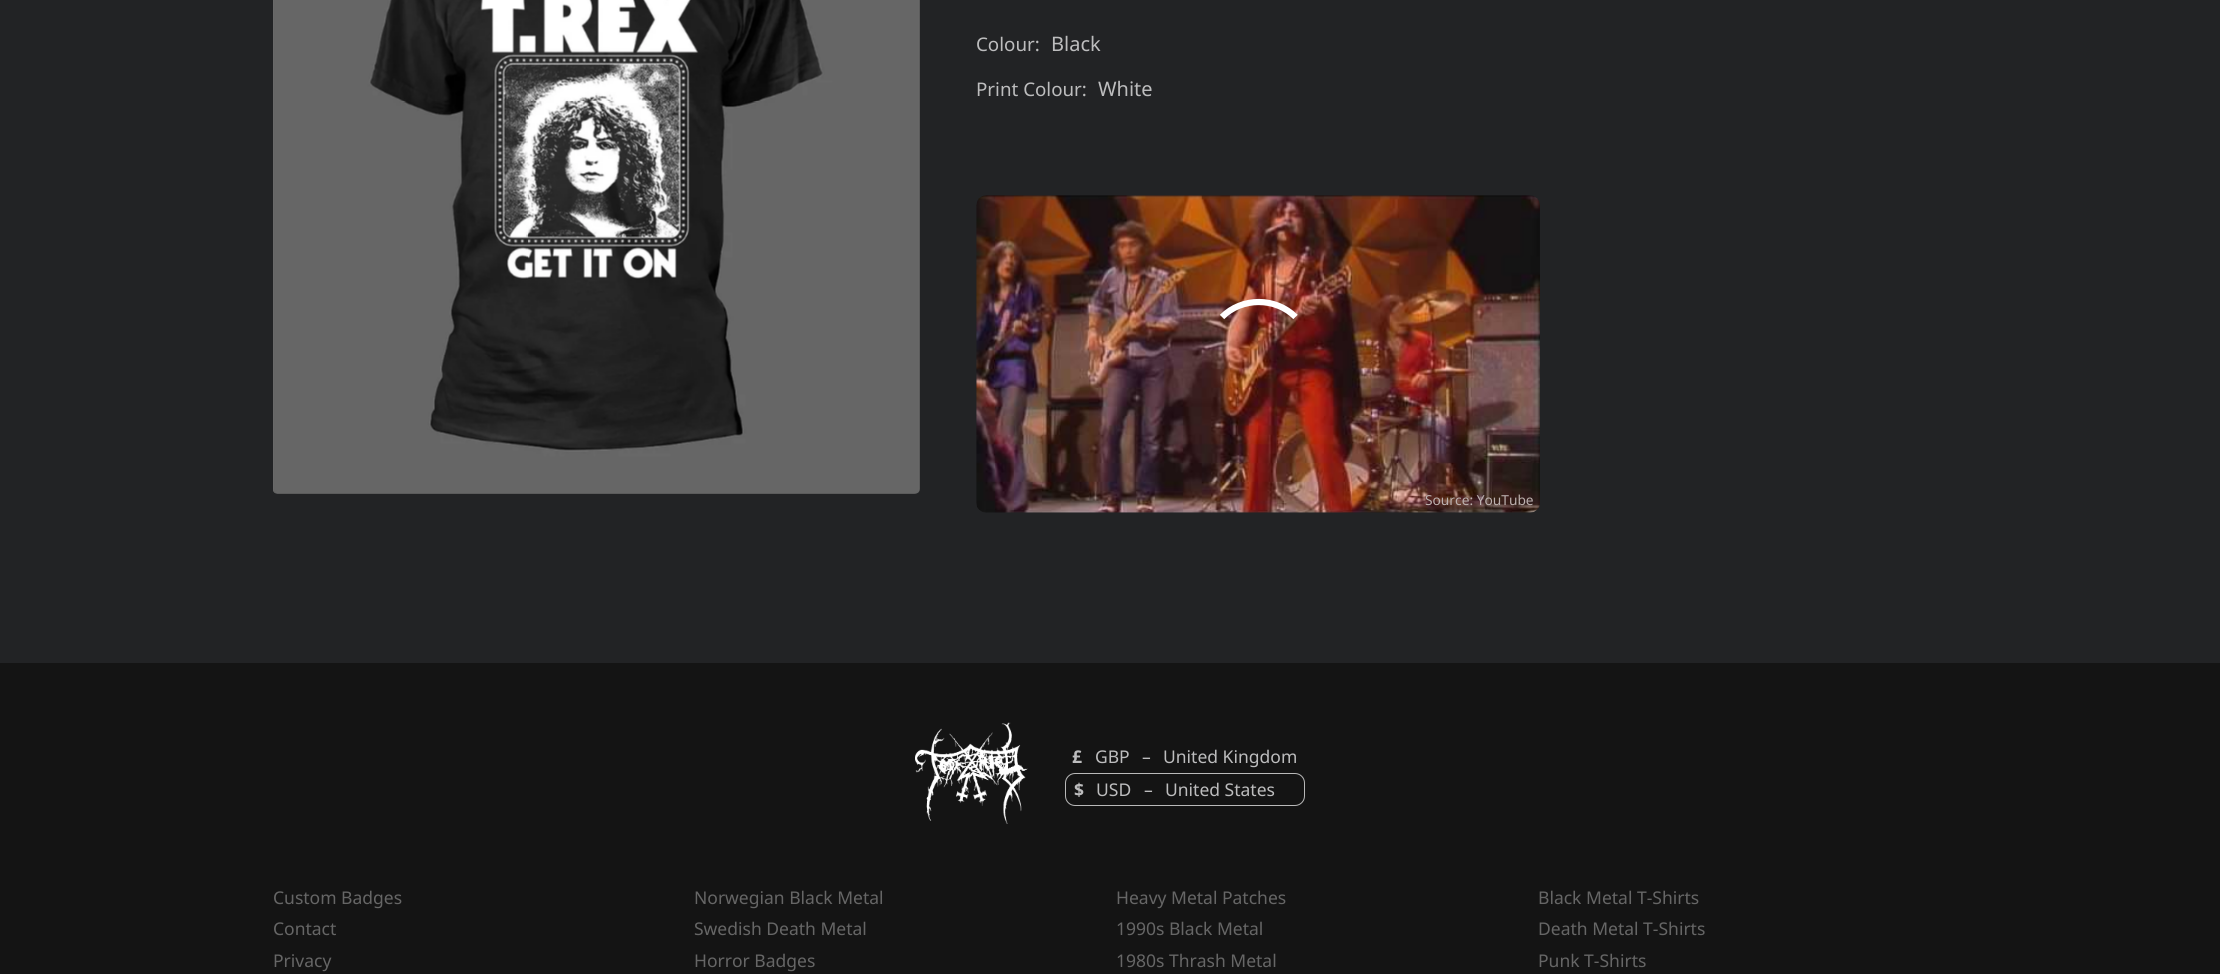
#include <cairo.h>
#include <math.h>
#include <stddef.h>

static cairo_t *c;
static void C(unsigned color){cairo_set_source_rgb(c, (color >> 16) / 255.0, (color >> 8 & 255) / 255.0, (color & 255) / 255.0);}
static void F(const char *family, double size, int italic, int bold){cairo_select_font_face(c, family, italic ? CAIRO_FONT_SLANT_ITALIC : CAIRO_FONT_SLANT_NORMAL,bold ? CAIRO_FONT_WEIGHT_BOLD : CAIRO_FONT_WEIGHT_NORMAL);cairo_set_font_size(c, size);}
static void T(double x, double y, const char *s){cairo_move_to(c, x, y);cairo_show_text(c, s);}
static void R(double x, double y, double w, double h){cairo_rectangle(c, x, y, w, h);cairo_fill(c);}
static void Q(double x, double y, double w, double h, double r){cairo_new_sub_path(c);cairo_arc(c, x + w - r, y + h - r, r, 0, M_PI / 2);cairo_arc(c, x + r, y + h - r, r, M_PI / 2, M_PI);cairo_arc(c, x + r, y + r, r, M_PI, 1.5 * M_PI);cairo_arc(c, x + w - r, y + r, r, 1.5 * M_PI, 2 * M_PI);cairo_close_path(c);}
static void I(const char *path, double x, double y, double w, double h){cairo_surface_t *image = cairo_image_surface_create_from_png(path);cairo_save(c);cairo_set_source_surface(c, image, x, y);cairo_rectangle(c, x, y, w, h);cairo_fill(c);cairo_restore(c);cairo_surface_destroy(image);}
int main(void) {
cairo_surface_t *surface = cairo_image_surface_create(CAIRO_FORMAT_RGB24, 2220, 974);
c = cairo_create(surface);
cairo_font_options_t *options = cairo_font_options_create();
cairo_font_options_set_hint_metrics(options, CAIRO_HINT_METRICS_OFF);
cairo_font_options_set_hint_style(options, CAIRO_HINT_STYLE_NONE);
cairo_set_font_options(c, options);
cairo_set_miter_limit(c, 4);
C(0x222325);
cairo_paint(c);
I("1.png",273,0,647,494);
I("2.png",273,0,647,494);
F("Noto Sans",18.75,0,0);
C(0xbdbdbe);
T(976,51,"Colour:");
F("Noto Sans",20,0,0);
T(1051,51,"Black");
F("Noto Sans",18.75,0,0);
T(976,96,"Print Colour:");
F("Noto Sans",20,0,0);
T(1098,96,"White");
I("3.png",976,195,564,318);
cairo_new_path(c);
cairo_move_to(c,1222,317);
cairo_curve_to(c,1242,297,1275.5,297,1295.5,317);
C(0xffffff);
cairo_set_line_width(c,6.2);
cairo_stroke(c);
F("Noto Sans",13.75,0,0);
C(0xbcb1af);
T(1425,505,"Source: YouTube");
C(0x141414);
R(0,663,2220,311);
I("4.png",915,722,113,102);
F("Noto Sans",17.5,0,1);
C(0xbdbdbe);
T(1072,763,"£");
F("Noto Sans",17.5,0,0);
T(1095,763,"GBP");
T(1142,763,"–");
T(1163,763,"United Kingdom");
Q(1065.5,773.5,239,32,9.5);
C(0xb9b9b9);
cairo_set_line_width(c,1);
cairo_stroke(c);
F("Noto Sans",17.5,0,1);
C(0xbdbdbe);
T(1074,796,"$");
F("Noto Sans",17.5,0,0);
T(1096,796,"USD");
T(1144,796,"–");
T(1165,796,"United States");
C(0x666666);
T(273,904,"Custom Badges");
T(273,935,"Contact");
T(273,967,"Privacy");
T(694,904,"Norwegian Black Metal");
T(694,935,"Swedish Death Metal");
T(694,967,"Horror Badges");
T(1116,904,"Heavy Metal Patches");
T(1116,935,"1990s Black Metal");
T(1116,967,"1980s Thrash Metal");
T(1538,904,"Black Metal T-Shirts");
T(1538,935,"Death Metal T-Shirts");
T(1538,967,"Punk T-Shirts");
cairo_surface_write_to_png(surface, "o.png");
cairo_font_options_destroy(options);
cairo_destroy(c);
cairo_surface_destroy(surface);
return 0;
}
